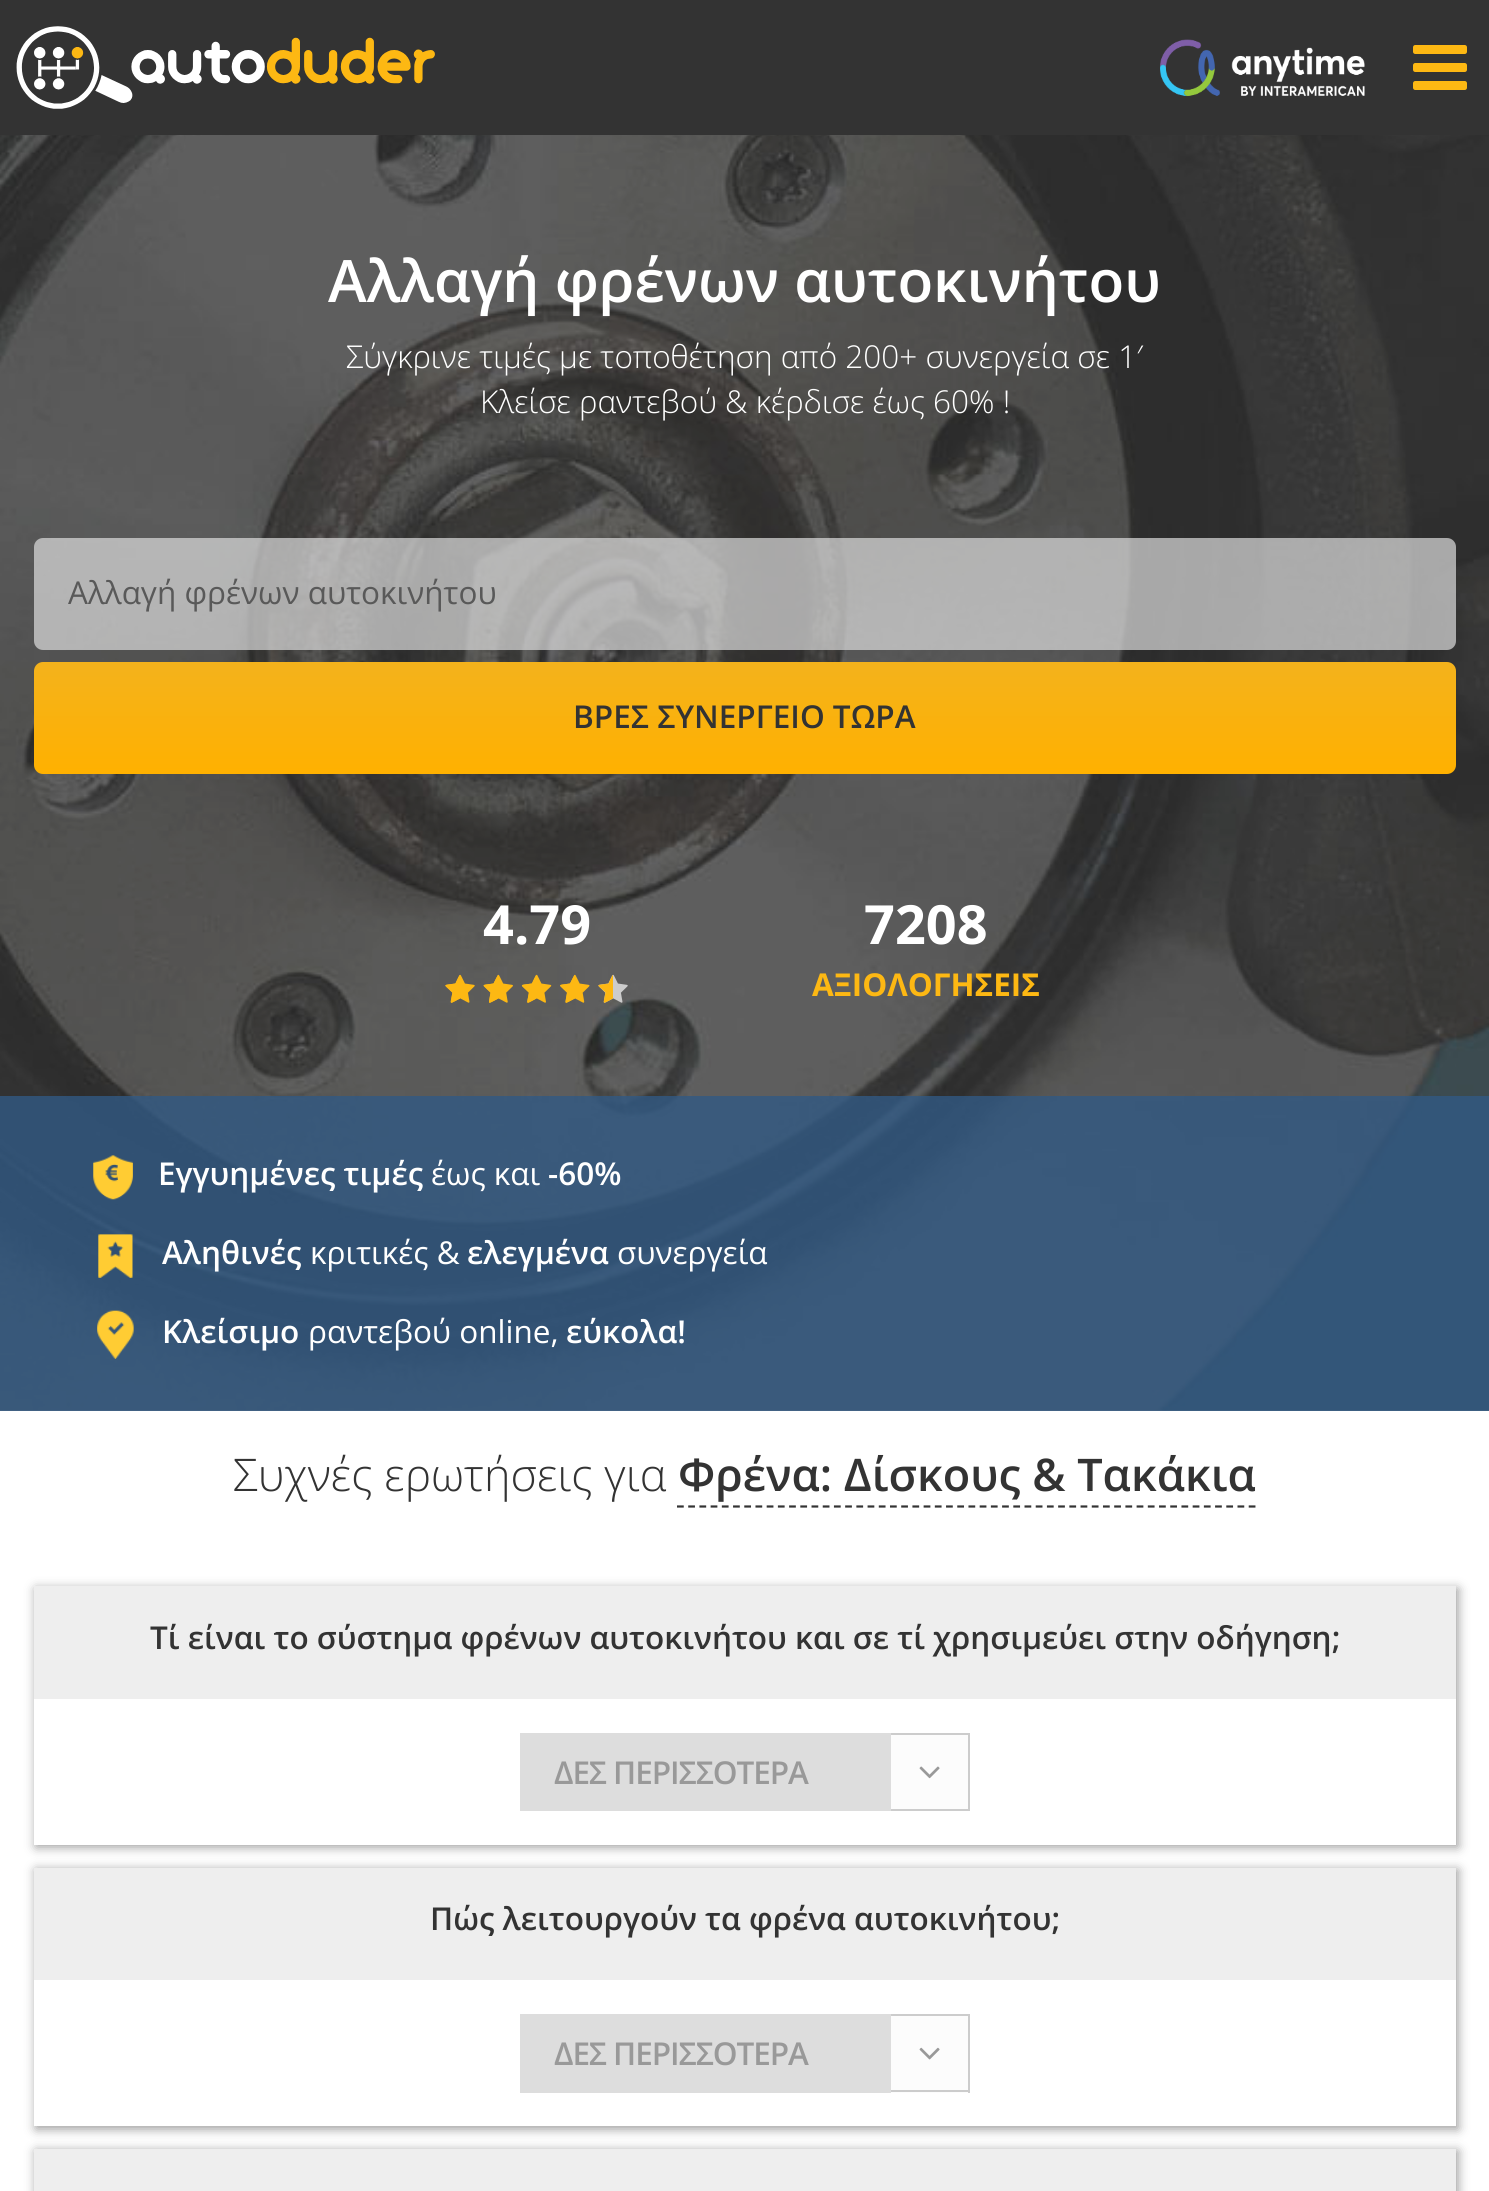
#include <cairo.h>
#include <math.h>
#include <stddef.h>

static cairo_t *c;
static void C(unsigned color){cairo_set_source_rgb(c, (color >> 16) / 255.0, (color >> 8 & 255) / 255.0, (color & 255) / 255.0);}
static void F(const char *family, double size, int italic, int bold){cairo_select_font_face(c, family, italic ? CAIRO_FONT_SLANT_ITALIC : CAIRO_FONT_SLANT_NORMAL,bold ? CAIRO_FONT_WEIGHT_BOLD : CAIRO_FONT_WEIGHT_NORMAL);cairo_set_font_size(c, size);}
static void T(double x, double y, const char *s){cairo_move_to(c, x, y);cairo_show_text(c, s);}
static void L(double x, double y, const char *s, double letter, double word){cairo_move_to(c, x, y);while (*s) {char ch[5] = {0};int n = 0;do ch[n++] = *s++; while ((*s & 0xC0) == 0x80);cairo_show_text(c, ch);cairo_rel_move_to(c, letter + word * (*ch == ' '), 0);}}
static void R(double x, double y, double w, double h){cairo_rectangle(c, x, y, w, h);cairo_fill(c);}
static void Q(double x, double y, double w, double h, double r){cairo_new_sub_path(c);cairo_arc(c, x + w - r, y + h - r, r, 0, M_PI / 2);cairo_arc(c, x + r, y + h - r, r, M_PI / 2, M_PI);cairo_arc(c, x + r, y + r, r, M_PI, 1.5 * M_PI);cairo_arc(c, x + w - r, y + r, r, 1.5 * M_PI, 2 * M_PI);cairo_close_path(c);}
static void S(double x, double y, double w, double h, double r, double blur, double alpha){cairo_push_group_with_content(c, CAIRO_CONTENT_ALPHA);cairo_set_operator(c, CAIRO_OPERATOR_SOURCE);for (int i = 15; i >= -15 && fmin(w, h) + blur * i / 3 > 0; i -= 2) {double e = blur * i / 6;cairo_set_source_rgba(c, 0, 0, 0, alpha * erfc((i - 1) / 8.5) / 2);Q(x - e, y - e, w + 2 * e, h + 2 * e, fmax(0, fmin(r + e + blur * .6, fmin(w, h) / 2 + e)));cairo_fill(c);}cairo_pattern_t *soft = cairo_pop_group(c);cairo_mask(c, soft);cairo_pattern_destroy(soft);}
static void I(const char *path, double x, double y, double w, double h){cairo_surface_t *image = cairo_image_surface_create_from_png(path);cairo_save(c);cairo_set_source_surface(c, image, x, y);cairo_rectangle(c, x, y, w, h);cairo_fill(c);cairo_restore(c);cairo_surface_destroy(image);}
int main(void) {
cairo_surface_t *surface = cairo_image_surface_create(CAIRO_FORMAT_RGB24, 1489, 2191);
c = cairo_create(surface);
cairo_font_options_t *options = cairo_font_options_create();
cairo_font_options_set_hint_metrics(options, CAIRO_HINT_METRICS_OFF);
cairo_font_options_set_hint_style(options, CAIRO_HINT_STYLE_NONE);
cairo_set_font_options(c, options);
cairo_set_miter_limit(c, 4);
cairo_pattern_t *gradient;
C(0xffffff);
cairo_paint(c);
C(0x333333);
R(0,0,1489,135);
I("1.png",16,26,419,83);
I("2.png",1160,39,205,58);
I("3.png",1413,45,54,45);
I("4.png",0,135,1489,1276);
F("Open Sans SemiBold",58.5,0,0);
C(0xffffff);
T(328,302,"Αλλαγή φρένων αυτοκινήτου");
F("Open Sans Light",31.5,0,0);
T(346,368,"Σύγκρινε τιμές με τοποθέτηση από 200+ συνεργεία σε 1′");
T(480,413,"Κλείσε ραντεβού & κέρδισε έως 60% !");
cairo_set_source_rgba(c,0.867,0.867,0.867,0.7);
Q(34,538,1422,112,9);
cairo_fill(c);
F("Open Sans",31.5,0,0);
C(0x595959);
T(68,604,"Αλλαγή φρένων αυτοκινήτου");
gradient = cairo_pattern_create_linear(745,774,745,662);
cairo_pattern_add_color_stop_rgba(gradient,0,1,0.694,0,1);
cairo_pattern_add_color_stop_rgba(gradient,1,0.957,0.698,0.11,1);
cairo_set_source(c,gradient);
cairo_pattern_destroy(gradient);
Q(34,662,1422,112,9);
cairo_fill(c);
F("Open Sans SemiBold",31.5,0,0);
C(0x333333);
T(573,728,"ΒΡΕΣ ΣΥΝΕΡΓΕΙΟ ΤΩΡΑ");
F("Open Sans",54,0,1);
C(0xffffff);
T(483,944,"4.79");
I("5.png",445,974,30,29);
I("6.png",483,974,30,29);
I("7.png",522,974,30,29);
I("8.png",560,974,30,29);
I("9.png",598,974,30,29);
C(0xfdb813);
cairo_new_path(c);
cairo_move_to(c,460,975);
cairo_line_to(c,460,998.5);
cairo_curve_to(c,448.5,1004.5,450,1005.5,452.5,992.5);
cairo_curve_to(c,443,983.5,442,985.5,455.5,983.5);
cairo_curve_to(c,456,982.5,459,975,460,975);
cairo_close_path(c);
cairo_fill(c);
cairo_new_path(c);
cairo_move_to(c,536.5,975);
cairo_line_to(c,536.5,998.5);
cairo_curve_to(c,525,1004.5,526.5,1005.5,529,992.5);
cairo_curve_to(c,519.5,983.5,518.5,985.5,532,983.5);
cairo_curve_to(c,532.5,982.5,535.5,975,536.5,975);
cairo_close_path(c);
cairo_move_to(c,498.5,975);
cairo_line_to(c,498.5,998.5);
cairo_curve_to(c,486.5,1004.5,488.5,1005.5,490.5,992.5);
cairo_curve_to(c,481.5,983.5,480,985.5,493.5,983.5);
cairo_curve_to(c,494,982.5,497.5,975,498.5,975);
cairo_close_path(c);
cairo_fill(c);
cairo_new_path(c);
cairo_move_to(c,613,975);
cairo_line_to(c,613,998.5);
cairo_curve_to(c,601.5,1004.5,603,1005.5,605.5,992.5);
cairo_curve_to(c,596,983.5,595,985.5,608.5,983.5);
cairo_curve_to(c,609,982.5,612,975,613,975);
cairo_close_path(c);
cairo_move_to(c,575,975);
cairo_line_to(c,575,998.5);
cairo_curve_to(c,563,1004.5,565,1005.5,567,992.5);
cairo_curve_to(c,558,983.5,556.5,985.5,570,983.5);
cairo_curve_to(c,570.5,982.5,574,975,575,975);
cairo_close_path(c);
cairo_fill(c);
C(0xffffff);
T(864,944,"7208");
F("Open Sans",31.5,0,1);
C(0xfdb813);
T(812,996,"ΑΞΙΟΛΟΓΗΣΕΙΣ");
cairo_set_source_rgba(c,0.192,0.349,0.514,0.8);
R(0,1096,1489,315);
I("10.png",93,1155,40,45);
F("Open Sans SemiBold",31.5,0,0);
C(0xffffff);
T(158,1185,"Εγγυημένες τιμές");
F("Open Sans",31.5,0,0);
T(431,1185,"έως και");
F("Open Sans SemiBold",31.5,0,0);
T(548,1185,"-60%");
I("11.png",98,1234,35,44);
T(162,1264,"Αληθινές");
F("Open Sans",31.5,0,0);
T(310,1264,"κριτικές &");
F("Open Sans SemiBold",31.5,0,0);
T(467,1264,"ελεγμένα");
F("Open Sans",31.5,0,0);
T(617,1264,"συνεργεία");
I("12.png",97,1310,37,49);
F("Open Sans SemiBold",31.5,0,0);
T(162,1343,"Κλείσιμο");
F("Open Sans",31.5,0,0);
T(308,1343,"ραντεβού online,");
F("Open Sans SemiBold",31.5,0,0);
T(566,1343,"εύκολα!");
F("Open Sans Light",45,0,0);
C(0x333333);
T(233,1491,"Συχνές ερωτήσεις για");
F("Open Sans SemiBold",45,0,0);
T(678,1491,"Φρένα: Δίσκους & Τακάκια");
cairo_new_path(c);
cairo_move_to(c,677,1506.5);
cairo_line_to(c,1255.5,1506.5);
cairo_set_line_width(c,2.2);
cairo_set_dash(c,(double[]){6.75,4.46},2,0);
cairo_stroke(c);
C(0x999999);
S(36,1589,1422,258,0,5.5,1);
C(0xffffff);
R(34,1699,1422,146);
C(0xeeeeee);
R(34,1586,1422,113);
F("Open Sans SemiBold",31.5,0,0);
C(0x333333);
T(150,1649,"Τί είναι το σύστημα φρένων αυτοκινήτου και σε τί χρησιμεύει στην οδήγηση;");
C(0xdddddd);
R(520,1733,371,78);
C(0x999999);
L(554,1784,"ΔΕΣ ΠΕΡΙΣΣΟΤΕΡΑ",-1.1,0);
C(0xfcfcfc);
R(891,1735,77,74);
C(0xcccccc);
R(891,1733,79,2);
R(968,1733,2,78);
R(891,1809,79,2);
I("13.png",919,1766,21,13);
C(0x999999);
S(36,1870,1422,259,0,5.5,1);
C(0xffffff);
R(34,1980,1422,146);
C(0xeeeeee);
R(34,1868,1422,112);
C(0x333333);
T(430,1930,"Πώς λειτουργούν τα φρένα αυτοκινήτου;");
C(0xdddddd);
R(520,2014,371,79);
C(0x999999);
L(554,2065,"ΔΕΣ ΠΕΡΙΣΣΟΤΕΡΑ",-1.1,0);
C(0xfcfcfc);
R(891,2016,77,77);
C(0xcccccc);
R(891,2014,79,2);
R(968,2014,2,79);
R(891,2090,79,2);
I("14.png",919,2047,21,13);
C(0x999999);
S(36,2151,1422,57,0,5.5,1);
C(0xeeeeee);
R(34,2149,1422,42);
cairo_surface_write_to_png(surface, "o.png");
cairo_font_options_destroy(options);
cairo_destroy(c);
cairo_surface_destroy(surface);
return 0;
}
